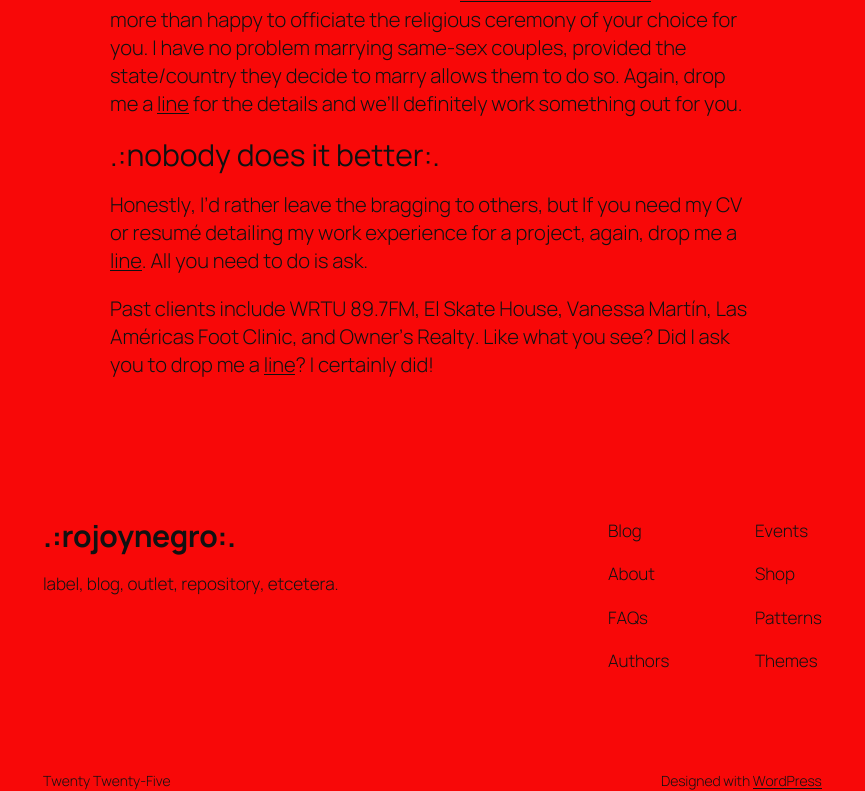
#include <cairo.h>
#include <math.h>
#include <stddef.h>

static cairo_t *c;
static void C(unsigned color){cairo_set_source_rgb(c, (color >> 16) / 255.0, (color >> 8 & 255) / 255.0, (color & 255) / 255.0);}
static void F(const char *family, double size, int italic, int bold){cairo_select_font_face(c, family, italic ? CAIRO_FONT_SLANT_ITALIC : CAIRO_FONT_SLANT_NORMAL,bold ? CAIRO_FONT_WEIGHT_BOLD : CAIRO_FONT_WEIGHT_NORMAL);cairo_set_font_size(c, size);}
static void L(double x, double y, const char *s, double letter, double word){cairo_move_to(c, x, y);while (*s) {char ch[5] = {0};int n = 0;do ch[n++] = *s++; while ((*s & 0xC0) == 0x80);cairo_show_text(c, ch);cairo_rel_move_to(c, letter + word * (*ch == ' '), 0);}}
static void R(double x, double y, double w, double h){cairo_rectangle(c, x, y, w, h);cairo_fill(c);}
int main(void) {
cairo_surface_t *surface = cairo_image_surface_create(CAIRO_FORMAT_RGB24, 865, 791);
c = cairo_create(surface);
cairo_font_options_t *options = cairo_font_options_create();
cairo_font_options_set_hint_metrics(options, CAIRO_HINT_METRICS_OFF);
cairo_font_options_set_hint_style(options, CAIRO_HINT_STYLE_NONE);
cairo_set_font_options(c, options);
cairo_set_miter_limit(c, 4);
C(0xf80808);
cairo_paint(c);
C(0x111111);
R(460,1,191,1);
F("Manrope Light",20.15,0,0);
L(110,27,"more than happy to officiate the religious ceremony of your choice for",-.1,0);
L(110,55,"you. I have no problem marrying same-sex couples, provided the",-.1,0);
L(110,83,"state/country they decide to marry allows them to do so. Again, drop",-.1,0);
L(110,111,"me a line for the details and we’ll definitely work something out for you.",-.1,0);
R(157,113,32,1);
F("Manrope",30.1,0,0);
L(110,166,".:nobody does it better:.",-.1,0);
F("Manrope Light",20.15,0,0);
L(110,212,"Honestly, I’d rather leave the bragging to others, but If you need my CV",-.1,0);
L(110,240,"or resumé detailing my work experience for a project, again, drop me a",-.1,0);
R(110,270,32,1);
L(110,268,"line. All you need to do is ask.",-.1,0);
L(110,316,"Past clients include WRTU 89.7FM, El Skate House, Vanessa Martín, Las",-.1,0);
L(110,344,"Américas Foot Clinic, and Owner’s Realty. Like what you see? Did I ask",-.1,0);
L(110,372,"you to drop me a line? I certainly did!",-.1,0);
R(264,374,31,1);
F("Manrope",30.1,0,1);
L(43,547,".:rojoynegro:.",-.5,0);
F("Manrope Light",17.1,0,0);
L(43,590,"label, blog, outlet, repository, etcetera.",-.1,0);
L(608,537,"Blog",-.1,0);
L(608,580,"About",-.1,0);
L(608,624,"FAQs",-.1,0);
L(608,667,"Authors",-.1,0);
L(755,537,"Events",-.1,0);
L(755,580,"Shop",-.1,0);
L(755,624,"Patterns",-.1,0);
L(755,667,"Themes",-.1,0);
F("Manrope Light",14,0,0);
L(43,786,"Twenty Twenty-Five",-.1,0);
L(661,786,"Designed with WordPress",-.1,0);
R(753,788,69,1);
cairo_surface_write_to_png(surface, "o.png");
cairo_font_options_destroy(options);
cairo_destroy(c);
cairo_surface_destroy(surface);
return 0;
}
